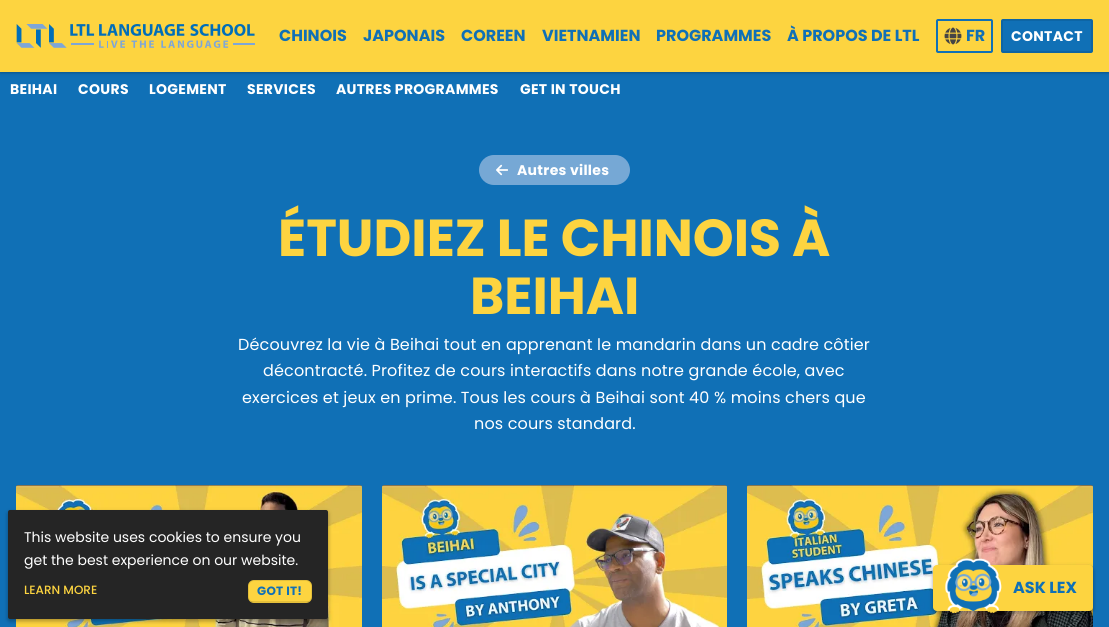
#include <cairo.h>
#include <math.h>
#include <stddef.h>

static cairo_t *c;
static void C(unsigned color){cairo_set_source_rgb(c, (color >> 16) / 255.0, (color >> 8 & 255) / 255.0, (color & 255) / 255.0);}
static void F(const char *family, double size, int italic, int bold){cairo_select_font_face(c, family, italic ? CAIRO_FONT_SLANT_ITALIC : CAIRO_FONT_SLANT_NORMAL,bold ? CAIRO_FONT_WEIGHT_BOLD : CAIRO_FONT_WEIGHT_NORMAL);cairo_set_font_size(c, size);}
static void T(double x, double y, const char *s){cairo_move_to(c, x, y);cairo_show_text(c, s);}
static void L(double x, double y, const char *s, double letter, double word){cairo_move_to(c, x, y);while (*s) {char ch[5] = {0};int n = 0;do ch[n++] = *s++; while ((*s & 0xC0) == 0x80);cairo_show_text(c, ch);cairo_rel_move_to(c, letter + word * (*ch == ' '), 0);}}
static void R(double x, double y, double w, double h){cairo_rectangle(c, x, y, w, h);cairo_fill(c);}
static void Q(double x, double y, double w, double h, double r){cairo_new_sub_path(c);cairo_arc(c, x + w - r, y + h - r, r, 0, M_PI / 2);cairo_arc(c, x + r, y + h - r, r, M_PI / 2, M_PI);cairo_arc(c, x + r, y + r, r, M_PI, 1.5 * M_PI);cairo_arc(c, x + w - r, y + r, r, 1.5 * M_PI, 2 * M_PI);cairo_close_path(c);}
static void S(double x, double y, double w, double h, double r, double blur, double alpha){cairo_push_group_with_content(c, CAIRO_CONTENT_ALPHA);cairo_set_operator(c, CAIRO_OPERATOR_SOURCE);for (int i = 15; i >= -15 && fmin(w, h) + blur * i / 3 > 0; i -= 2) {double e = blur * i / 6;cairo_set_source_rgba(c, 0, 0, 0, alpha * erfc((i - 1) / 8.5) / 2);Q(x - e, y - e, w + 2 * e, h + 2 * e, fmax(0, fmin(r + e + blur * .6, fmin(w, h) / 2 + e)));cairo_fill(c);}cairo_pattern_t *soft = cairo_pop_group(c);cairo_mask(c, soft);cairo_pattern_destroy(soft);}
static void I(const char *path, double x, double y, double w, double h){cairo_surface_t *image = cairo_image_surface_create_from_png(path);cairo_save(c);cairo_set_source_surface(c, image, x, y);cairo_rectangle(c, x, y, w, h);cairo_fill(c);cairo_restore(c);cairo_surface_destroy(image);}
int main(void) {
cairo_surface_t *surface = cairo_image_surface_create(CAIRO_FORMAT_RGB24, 1109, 627);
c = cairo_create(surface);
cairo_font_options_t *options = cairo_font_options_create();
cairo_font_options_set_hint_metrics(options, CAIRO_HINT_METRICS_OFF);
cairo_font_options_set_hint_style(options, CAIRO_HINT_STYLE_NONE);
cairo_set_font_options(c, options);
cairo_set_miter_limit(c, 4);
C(0x1070b6);
cairo_paint(c);
C(0x000000);
S(0,2,1109,72,0,3,.08);
S(0,1,1109,72,0,1,.18);
C(0xfdd440);
R(0,0,1109,72);
I("1.png",16,24,239,24);
F("Poppins",16,0,1);
C(0x1070b6);
T(279,41,"CHINOIS");
T(363,41,"JAPONAIS");
T(461,41,"COREEN");
T(542,41,"VIETNAMIEN");
T(656,41,"PROGRAMMES");
T(787,41,"À PROPOS DE LTL");
Q(937,20,55,32,1);
cairo_stroke(c);
I("2.png",944,27,18,18);
T(966,41,"FR");
Q(1001,19,92,34,2);
cairo_fill(c);
Q(1002,20,90,32,1);
cairo_set_source_rgba(c,0,0,0,0.1);
cairo_stroke(c);
F("Poppins",14,0,1);
C(0xffffff);
L(1011,41,"CONTACT",.3,0);
L(10,94,"BEIHAI",.3,0);
L(78,94,"COURS",.3,0);
L(149,94,"LOGEMENT",.3,0);
L(247,94,"SERVICES",.3,0);
L(336,94,"AUTRES PROGRAMMES",.3,0);
L(520,94,"GET IN TOUCH",.3,0);
C(0x76a8d5);
Q(479,155,151,30,15);
cairo_fill(c);
I("3.png",496,164,12,12);
C(0xffffff);
L(517,175,"Autres villes",.3,0);
F("Poppins",52,0,1);
C(0xfdd440);
T(278,256,"ÉTUDIEZ LE CHINOIS À");
T(470,314,"BEIHAI");
F("Poppins",16,0,0);
C(0xffffff);
L(238,350,"Découvrez la vie à Beihai tout en apprenant le mandarin dans un cadre côtier",.15,0);
L(263,376,"décontracté. Profitez de cours interactifs dans notre grande école, avec",.15,0);
L(242,403,"exercices et jeux en prime. Tous les cours à Beihai sont 40 % moins chers que",.15,0);
L(474,429,"nos cours standard.",.15,0);
I("4.png",16,485,346,142);
I("5.png",382,485,345,142);
I("6.png",747,485,346,142);
C(0x000000);
S(8,512,320,109,2,3,.12);
S(8,512,320,109,2,2,.24);
C(0x252525);
Q(8,510,320,109,2);
cairo_fill(c);
F("Poppins",14,0,0);
C(0xffffff);
T(24,542,"This website uses cookies to ensure you");
T(24,565,"get the best experience on our website.");
F("Poppins Medium",12,0,0);
C(0xfdd440);
T(24,594,"LEARN MORE");
Q(248,580,64,23,6);
cairo_fill(c);
Q(248.5,580.5,63,22,5.5);
cairo_set_source_rgba(c,0,0,0,0.1);
cairo_set_line_width(c,1);
cairo_stroke(c);
R(251,601,58,1);
F("Poppins",12,0,1);
C(0x1070b6);
L(257,595,"GOT IT!",.25,0);
C(0x000000);
S(933,567,160,46,4,3,.12);
S(933,567,160,46,4,2,.24);
C(0xfdd440);
Q(933,565,160,46,4);
cairo_fill(c);
I("7.png",945,558,57,55);
F("Poppins",16,0,1);
C(0x1070b6);
T(1013,593,"ASK LEX");
cairo_surface_write_to_png(surface, "o.png");
cairo_font_options_destroy(options);
cairo_destroy(c);
cairo_surface_destroy(surface);
return 0;
}
